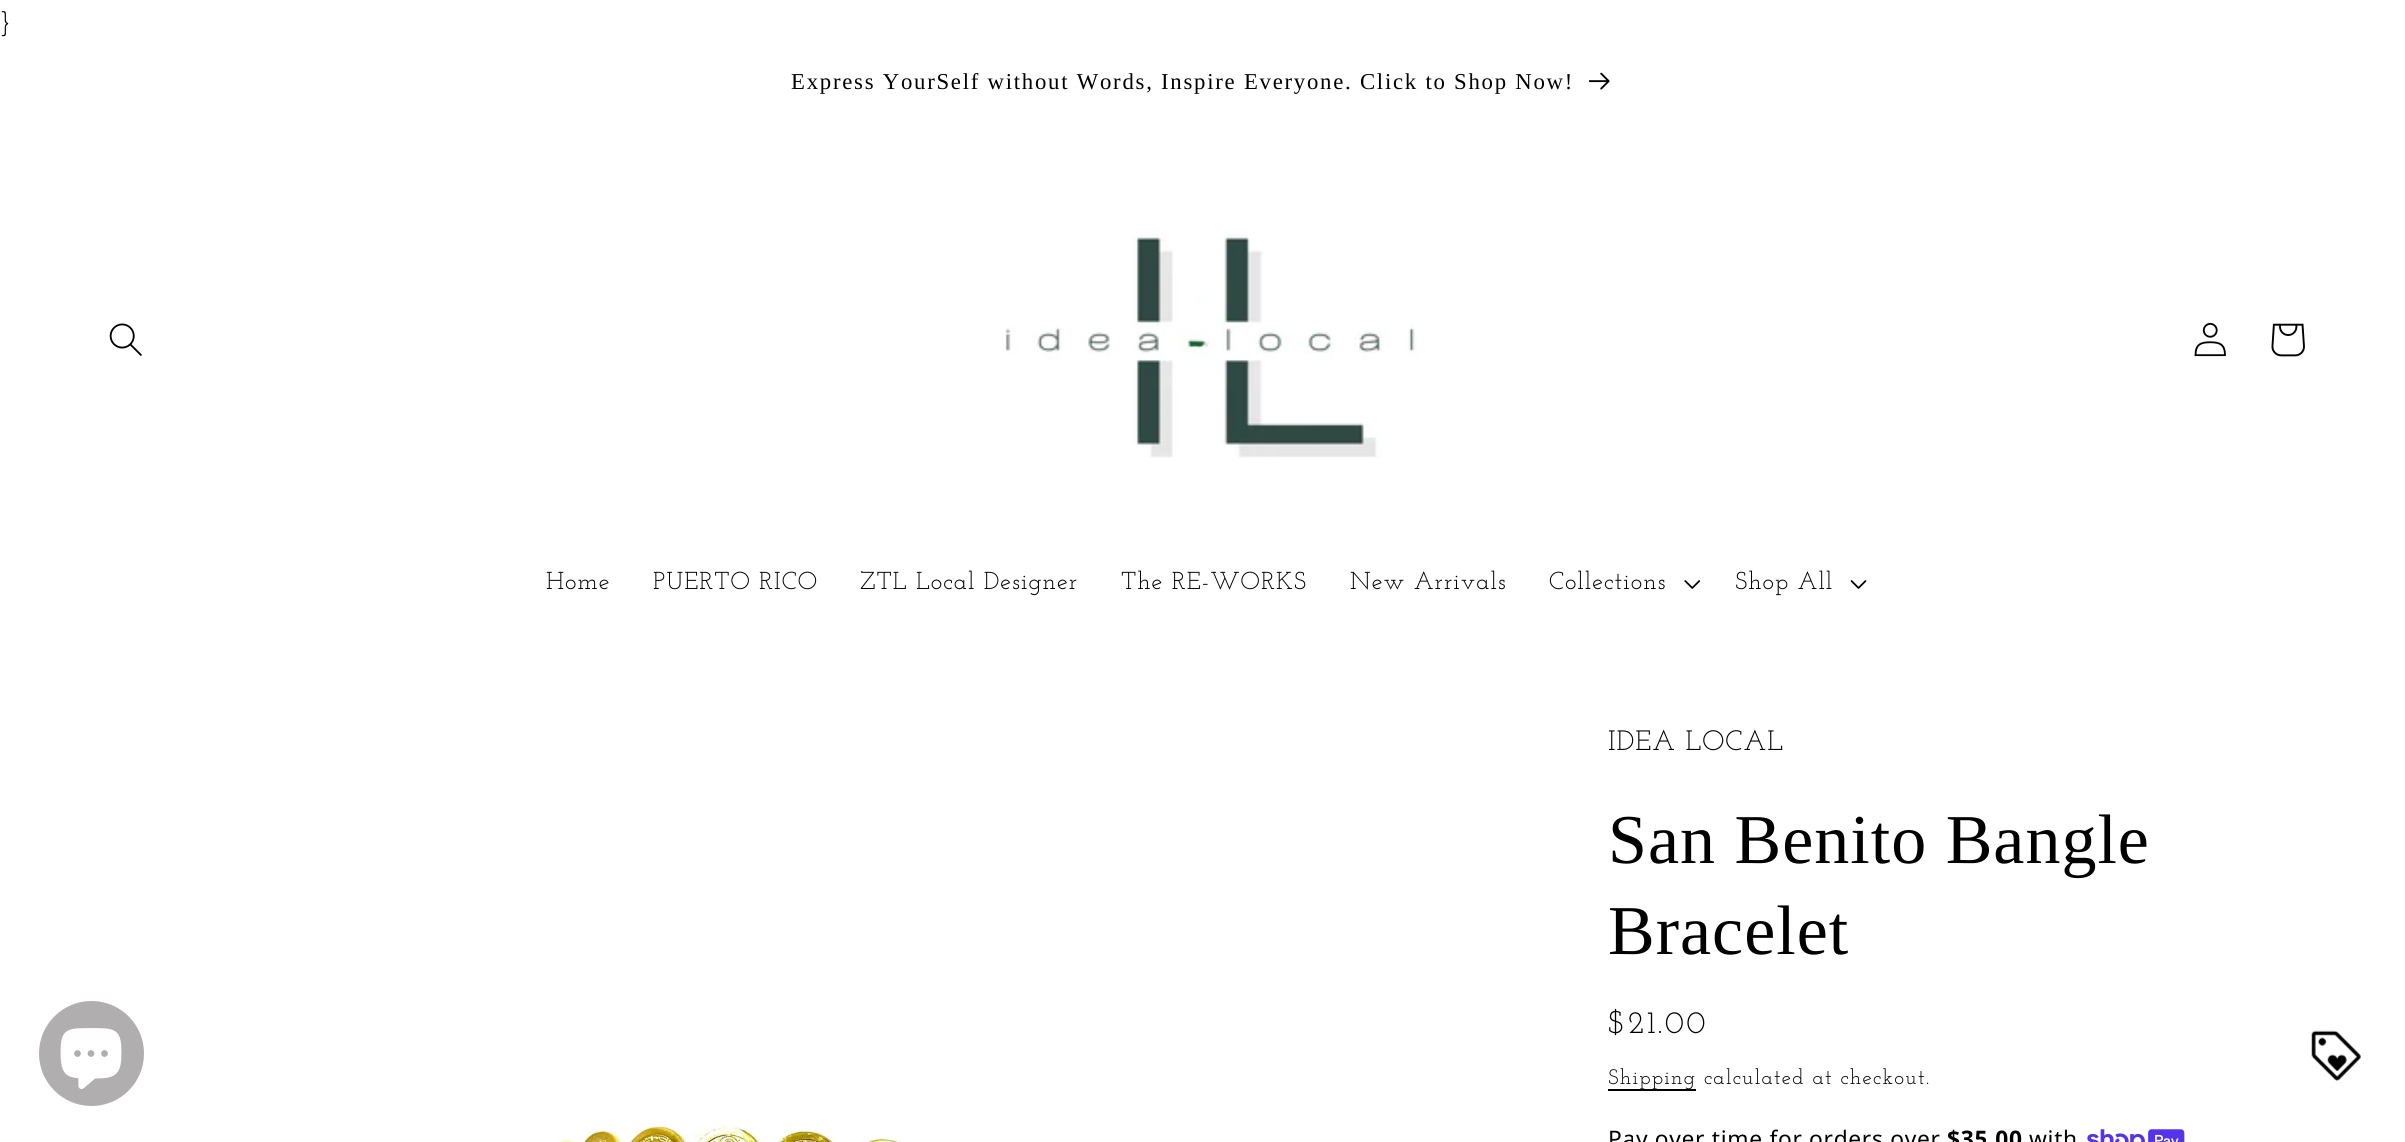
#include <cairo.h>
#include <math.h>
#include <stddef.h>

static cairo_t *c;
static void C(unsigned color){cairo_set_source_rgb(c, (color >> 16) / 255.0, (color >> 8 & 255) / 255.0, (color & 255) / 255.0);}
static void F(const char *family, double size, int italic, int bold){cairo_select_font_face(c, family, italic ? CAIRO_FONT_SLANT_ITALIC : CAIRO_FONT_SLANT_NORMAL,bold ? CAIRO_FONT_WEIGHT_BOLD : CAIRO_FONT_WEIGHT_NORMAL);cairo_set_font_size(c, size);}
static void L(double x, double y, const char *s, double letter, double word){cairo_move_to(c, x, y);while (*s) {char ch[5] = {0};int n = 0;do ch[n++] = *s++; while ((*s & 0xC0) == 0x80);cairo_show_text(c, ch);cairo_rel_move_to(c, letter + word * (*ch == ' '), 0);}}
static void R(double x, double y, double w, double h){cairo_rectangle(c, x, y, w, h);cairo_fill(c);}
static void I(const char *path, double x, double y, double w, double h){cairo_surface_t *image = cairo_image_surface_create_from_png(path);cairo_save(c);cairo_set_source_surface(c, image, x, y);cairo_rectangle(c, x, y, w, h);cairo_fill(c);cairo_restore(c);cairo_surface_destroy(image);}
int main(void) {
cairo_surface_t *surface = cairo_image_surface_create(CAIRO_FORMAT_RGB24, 2405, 1142);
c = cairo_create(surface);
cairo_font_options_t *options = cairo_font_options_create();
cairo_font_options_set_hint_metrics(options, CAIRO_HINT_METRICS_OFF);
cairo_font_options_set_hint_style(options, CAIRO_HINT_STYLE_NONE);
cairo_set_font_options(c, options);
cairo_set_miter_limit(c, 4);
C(0xffffff);
cairo_paint(c);
F("Josefin Slab",28,0,0);
C(0x000000);
L(0,32,"}",1,0);
F("Liberation Serif",22.75,0,0);
L(791,89,"Express YourSelf without Words, Inspire Everyone. Click to Shop Now!",1.75,0);
I("1.png",1589,72,21,18);
I("2.png",109,323,33,33);
I("3.png",1005,234,412,224);
I("4.png",2194,322,32,35);
I("5.png",2271,323,34,34);
F("Josefin Slab",24.5,0,0);
L(546,589,"Home",1,0);
L(653,589,"PUERTO RICO",1,0);
L(860,589,"ZTL Local Designer",1,0);
L(1121,589,"The RE-WORKS",1,0);
L(1350,589,"New Arrivals",1,0);
L(1549,589,"Collections",1,0);
I("6.png",1684,580,16,9);
L(1735,589,"Shop All",1,0);
I("7.png",1850,580,17,9);
C(0xb0aeae);
cairo_arc(c,91.5,1053.5,52.5,0,2 * M_PI);
cairo_fill(c);
I("8.png",60,1028,62,61);
I("9.png",558,1124,347,18);
F("Josefin Slab",28,0,0);
C(0x000000);
L(1608,750,"IDEA LOCAL",1,0);
F("Liberation Serif",70,0,0);
L(1608,863,"San Benito Bangle",1,0);
L(1608,954,"Bracelet",1,0);
F("Josefin Slab",31.5,0,0);
L(1608,1033,"$21.00",2.25,0);
R(1608,1089,88,2);
F("Josefin Slab",21,0,0);
L(1608,1084,"Shipping calculated at checkout.",1.25,0);
F("Noto Sans",22.75,0,0);
L(1608,1147,"Pay over time for orders over",.7,0);
F("Noto Sans",22.75,0,1);
L(1947,1147,"$35.00",.7,0);
F("Noto Sans",22.75,0,0);
L(2029,1147,"with",.7,0);
I("10.png",2087,1129,98,13);
I("11.png",2311,1030,50,51);
cairo_surface_write_to_png(surface, "o.png");
cairo_font_options_destroy(options);
cairo_destroy(c);
cairo_surface_destroy(surface);
return 0;
}
